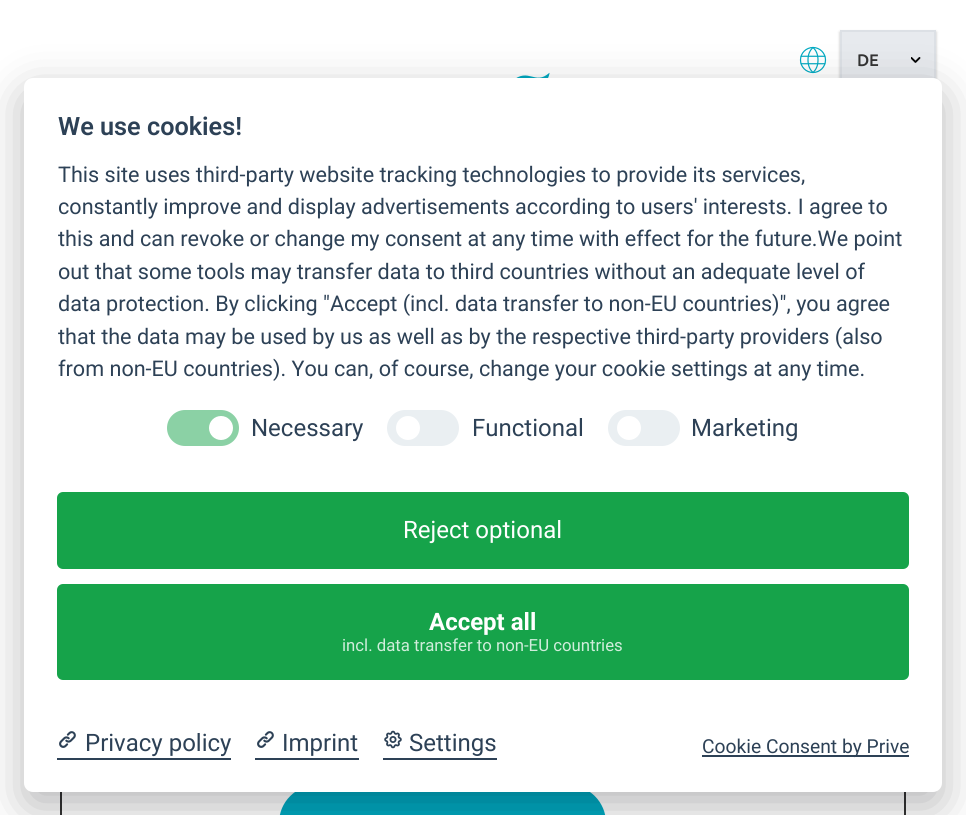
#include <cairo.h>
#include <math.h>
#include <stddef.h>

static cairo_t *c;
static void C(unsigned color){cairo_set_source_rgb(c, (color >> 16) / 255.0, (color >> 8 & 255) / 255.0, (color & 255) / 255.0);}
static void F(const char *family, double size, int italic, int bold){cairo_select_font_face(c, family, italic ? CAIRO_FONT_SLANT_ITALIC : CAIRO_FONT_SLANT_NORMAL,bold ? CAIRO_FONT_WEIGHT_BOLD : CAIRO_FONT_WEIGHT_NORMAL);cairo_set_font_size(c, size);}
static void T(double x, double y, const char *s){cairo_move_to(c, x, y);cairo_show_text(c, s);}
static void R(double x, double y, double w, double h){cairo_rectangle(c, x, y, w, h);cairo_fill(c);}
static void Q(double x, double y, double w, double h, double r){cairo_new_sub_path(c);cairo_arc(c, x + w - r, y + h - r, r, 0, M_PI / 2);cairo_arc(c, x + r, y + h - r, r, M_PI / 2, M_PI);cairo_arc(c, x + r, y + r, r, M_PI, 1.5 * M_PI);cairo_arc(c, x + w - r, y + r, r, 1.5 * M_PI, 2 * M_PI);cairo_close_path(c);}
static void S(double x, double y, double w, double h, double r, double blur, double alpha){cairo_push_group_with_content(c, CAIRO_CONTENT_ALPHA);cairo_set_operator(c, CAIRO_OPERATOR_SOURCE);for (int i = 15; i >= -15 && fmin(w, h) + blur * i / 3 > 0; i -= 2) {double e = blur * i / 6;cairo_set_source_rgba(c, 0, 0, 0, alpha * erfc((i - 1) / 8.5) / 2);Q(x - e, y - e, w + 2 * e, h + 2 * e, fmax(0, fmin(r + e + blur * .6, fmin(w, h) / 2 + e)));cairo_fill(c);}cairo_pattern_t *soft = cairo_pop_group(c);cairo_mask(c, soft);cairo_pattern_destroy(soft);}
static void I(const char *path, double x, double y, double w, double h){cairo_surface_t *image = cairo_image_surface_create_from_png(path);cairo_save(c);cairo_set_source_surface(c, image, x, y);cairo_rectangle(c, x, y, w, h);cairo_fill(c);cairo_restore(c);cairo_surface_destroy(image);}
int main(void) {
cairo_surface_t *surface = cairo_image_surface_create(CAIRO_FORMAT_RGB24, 966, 815);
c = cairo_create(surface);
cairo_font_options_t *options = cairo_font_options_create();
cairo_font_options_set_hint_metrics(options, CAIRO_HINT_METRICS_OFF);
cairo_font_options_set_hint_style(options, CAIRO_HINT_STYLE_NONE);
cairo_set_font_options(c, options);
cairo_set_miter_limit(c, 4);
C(0xffffff);
cairo_paint(c);
I("1.png",799,46,28,28);
C(0x000000);
S(840,32,96,60,0,1.5,.25);
C(0xe7eaee);
R(842,32,92,47);
cairo_rectangle(c,841,31,94,58);
C(0xdce0e5);
cairo_stroke(c);
F("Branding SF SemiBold",18,0,0);
C(0x333333);
T(857,66,"DE");
I("2.png",911,57,10,6);
I("3.png",516,72,34,6);
cairo_rectangle(c,61,235,844,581);
cairo_stroke(c);
C(0x00a9c1);
Q(280.5,786.5,324,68,36.5);
cairo_fill_preserve(c);
cairo_set_line_width(c,3);
cairo_stroke(c);
C(0x020203);
S(24,93,918,714,9,22.5,.28);
C(0xffffff);
Q(24,78,918,714,9);
cairo_fill(c);
F("Roboto SemiBold",25.25,0,0);
C(0x2d4156);
T(58,135,"We use cookies!");
F("Roboto",21.6,0,0);
T(58,182,"This site uses third-party website tracking technologies to provide its services,");
T(58,214,"constantly improve and display advertisements according to users' interests. I agree to");
T(58,246,"this and can revoke or change my consent at any time with effect for the future.We point");
T(58,279,"out that some tools may transfer data to third countries without an adequate level of");
T(58,311,"data protection. By clicking \"Accept (incl. data transfer to non-EU countries)\", you agree");
T(58,344,"that the data may be used by us as well as by the respective third-party providers (also");
T(58,376,"from non-EU countries). You can, of course, change your cookie settings at any time.");
C(0x8bd1a5);
Q(167,410,72,36,18);
cairo_fill(c);
C(0xffffff);
cairo_arc(c,221,428,12,0,2 * M_PI);
cairo_fill(c);
F("Roboto",24,0,0);
C(0x2d4156);
T(251,436,"Necessary");
C(0xeaeff2);
Q(387,410,72,36,18);
cairo_fill(c);
C(0xffffff);
cairo_arc(c,408,428,12,0,2 * M_PI);
cairo_fill(c);
C(0x2d4156);
T(472,436,"Functional");
C(0xeaeff2);
Q(608,410,72,36,18);
cairo_fill(c);
C(0xffffff);
cairo_arc(c,629,428,12,0,2 * M_PI);
cairo_fill(c);
C(0x2d4156);
T(691,436,"Marketing");
C(0x16a34a);
Q(57,492,852,77,6);
cairo_fill(c);
C(0xffffff);
T(403,538,"Reject optional");
C(0x16a34a);
Q(57,584,852,96,6);
cairo_fill(c);
F("Roboto",24,0,1);
C(0xffffff);
T(429,630,"Accept all");
F("Roboto",16.75,0,0);
C(0xd0eddb);
T(342,651,"incl. data transfer to non-EU countries");
C(0x2d4156);
R(57,758,174,2);
I("4.png",59,731,17,17);
F("Roboto",24,0,0);
T(85,751,"Privacy policy");
R(255,758,104,2);
I("4.png",257,731,17,17);
T(282,751,"Imprint");
R(383,758,114,2);
I("5.png",384,730,18,19);
T(409,751,"Settings");
R(702,755,207,2);
F("Roboto",19.25,0,0);
T(702,753,"Cookie Consent by Prive");
cairo_surface_write_to_png(surface, "o.png");
cairo_font_options_destroy(options);
cairo_destroy(c);
cairo_surface_destroy(surface);
return 0;
}
